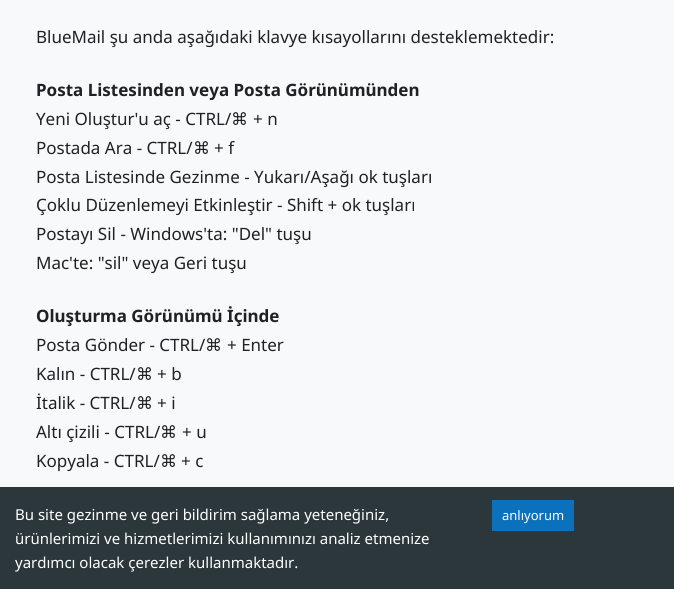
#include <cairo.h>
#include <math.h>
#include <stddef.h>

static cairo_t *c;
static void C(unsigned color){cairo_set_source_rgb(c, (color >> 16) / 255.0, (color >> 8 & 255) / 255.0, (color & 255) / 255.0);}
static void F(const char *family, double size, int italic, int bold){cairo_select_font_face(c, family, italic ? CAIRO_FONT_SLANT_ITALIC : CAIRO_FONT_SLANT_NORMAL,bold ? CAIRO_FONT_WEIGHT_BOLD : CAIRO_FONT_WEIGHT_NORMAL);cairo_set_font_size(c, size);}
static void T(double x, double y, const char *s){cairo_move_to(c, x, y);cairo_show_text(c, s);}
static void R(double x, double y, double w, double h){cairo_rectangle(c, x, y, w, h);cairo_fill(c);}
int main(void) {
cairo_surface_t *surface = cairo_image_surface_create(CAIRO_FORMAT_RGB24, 674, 589);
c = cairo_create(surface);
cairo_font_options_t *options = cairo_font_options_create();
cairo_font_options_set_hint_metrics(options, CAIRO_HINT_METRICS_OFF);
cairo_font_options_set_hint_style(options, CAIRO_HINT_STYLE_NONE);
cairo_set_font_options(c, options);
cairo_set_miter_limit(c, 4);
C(0xf8f9fa);
cairo_paint(c);
F("Noto Sans",17,0,0);
C(0x202124);
T(36,43,"BlueMail şu anda aşağıdaki klavye kısayollarını desteklemektedir:");
F("Noto Sans",17,0,1);
T(36,96,"Posta Listesinden veya Posta Görünümünden");
F("Noto Sans",17,0,0);
T(36,125,"Yeni Oluştur'u aç - CTRL/");
F("DejaVu Sans",17,0,0);
T(231,125,"⌘");
F("Noto Sans",17,0,0);
T(253,125,"+ n");
T(36,154,"Postada Ara - CTRL/");
F("DejaVu Sans",17,0,0);
T(193,154,"⌘");
F("Noto Sans",17,0,0);
T(214,154,"+ f");
T(36,183,"Posta Listesinde Gezinme - Yukarı/Aşağı ok tuşları");
T(36,211,"Çoklu Düzenlemeyi Etkinleştir - Shift + ok tuşları");
T(36,240,"Postayı Sil - Windows'ta: \"Del\" tuşu");
T(36,269,"Mac'te: \"sil\" veya Geri tuşu");
F("Noto Sans",17,0,1);
T(36,322,"Oluşturma Görünümü İçinde");
F("Noto Sans",17,0,0);
T(36,351,"Posta Gönder - CTRL/");
F("DejaVu Sans",17,0,0);
T(205,351,"⌘");
F("Noto Sans",17,0,0);
T(227,351,"+ Enter");
T(36,380,"Kalın - CTRL/");
F("DejaVu Sans",17,0,0);
T(136,380,"⌘");
F("Noto Sans",17,0,0);
T(157,380,"+ b");
T(36,409,"İtalik - CTRL/");
F("DejaVu Sans",17,0,0);
T(136,409,"⌘");
F("Noto Sans",17,0,0);
T(157,409,"+ i");
T(36,438,"Altı çizili - CTRL/");
F("DejaVu Sans",17,0,0);
T(160,438,"⌘");
F("Noto Sans",17,0,0);
T(182,438,"+ u");
T(36,467,"Kopyala - CTRL/");
F("DejaVu Sans",17,0,0);
T(160,467,"⌘");
F("Noto Sans",17,0,0);
T(181,467,"+ c");
C(0x2b373b);
R(0,487,674,102);
F("Noto Sans",15,0,0);
C(0xffffff);
T(15,520,"Bu site gezinme ve geri bildirim sağlama yeteneğiniz,");
T(15,544,"ürünlerimizi ve hizmetlerimizi kullanımınızı analiz etmenize");
T(15,568,"yardımcı olacak çerezler kullanmaktadır.");
C(0x0b71bc);
R(492,500,82,31);
F("Noto Sans",13,0,0);
C(0xffffff);
T(502,520,"anlıyorum");
cairo_surface_write_to_png(surface, "o.png");
cairo_font_options_destroy(options);
cairo_destroy(c);
cairo_surface_destroy(surface);
return 0;
}
